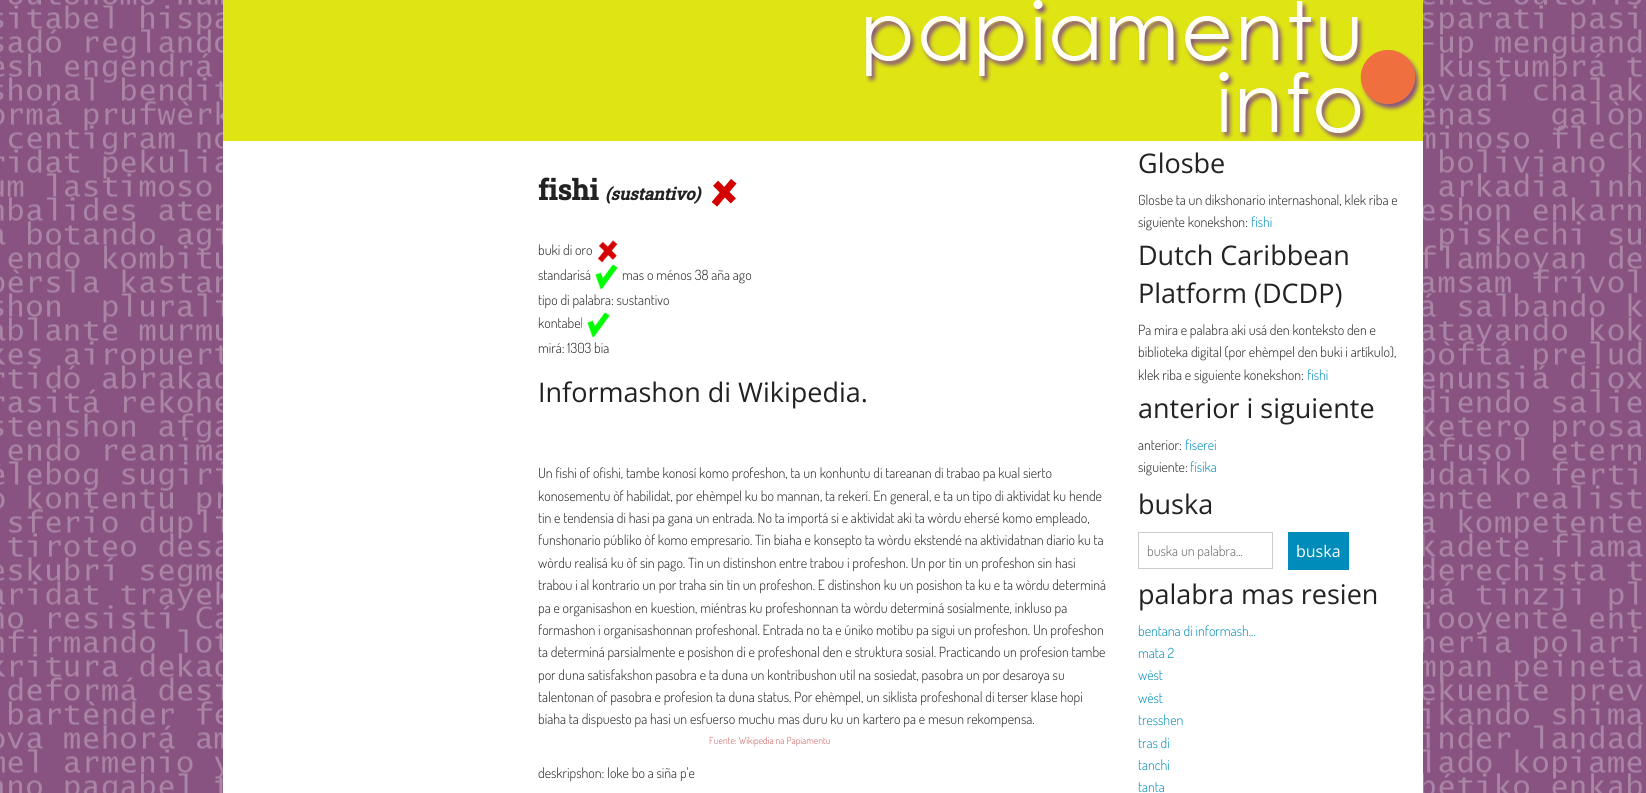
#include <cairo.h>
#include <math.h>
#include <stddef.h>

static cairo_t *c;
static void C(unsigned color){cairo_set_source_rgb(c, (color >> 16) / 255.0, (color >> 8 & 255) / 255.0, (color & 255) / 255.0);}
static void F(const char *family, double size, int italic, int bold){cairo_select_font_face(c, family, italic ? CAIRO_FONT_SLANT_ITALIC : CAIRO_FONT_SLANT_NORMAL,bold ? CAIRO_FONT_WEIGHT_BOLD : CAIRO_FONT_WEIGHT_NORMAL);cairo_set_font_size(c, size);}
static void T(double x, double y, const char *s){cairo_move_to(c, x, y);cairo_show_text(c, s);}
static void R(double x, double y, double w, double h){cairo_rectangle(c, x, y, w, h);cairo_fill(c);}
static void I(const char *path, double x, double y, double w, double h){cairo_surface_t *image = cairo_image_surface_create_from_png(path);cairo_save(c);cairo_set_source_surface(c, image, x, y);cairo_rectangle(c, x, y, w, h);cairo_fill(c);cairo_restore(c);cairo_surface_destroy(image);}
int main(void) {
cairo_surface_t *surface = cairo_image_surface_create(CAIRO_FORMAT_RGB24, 1646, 793);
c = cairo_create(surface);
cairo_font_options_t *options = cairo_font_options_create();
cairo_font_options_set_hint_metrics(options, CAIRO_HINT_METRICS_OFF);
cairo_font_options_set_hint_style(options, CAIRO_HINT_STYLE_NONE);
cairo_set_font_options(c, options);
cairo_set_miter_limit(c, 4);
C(0x885381);
cairo_paint(c);
I("1.png",0,0,1646,793);
C(0xdee512);
R(223,0,1200,141);
I("2.png",865,0,557,141);
C(0xffffff);
R(223,141,1200,652);
F("Roboto Slab",28,0,1);
C(0x222222);
T(538,200,"fishi");
F("Roboto Slab",16.75,1,1);
T(605,200,"(sustantivo)");
I("3.png",711,179,26,28);
F("Dosis Light",14,0,0);
T(538,255,"buki di oro");
I("4.png",597,240,21,23);
T(538,280,"standarisá");
I("5.png",595,264,23,25);
T(622,280,"mas o ménos 38 aña ago");
T(538,305,"tipo di palabra: sustantivo");
T(538,328,"kontabel");
I("6.png",587,312,23,25);
T(538,353,"mirá: 1303 bia");
F("Open Sans",27,0,0);
T(538,402,"Informashon di Wikipedia.");
F("Dosis Light",14,0,0);
T(538,478,"Un fishi of ofishi, tambe konosí komo profeshon, ta un konhuntu di tareanan di trabao pa kual sierto");
T(538,501,"konosementu òf habilidat, por ehèmpel ku bo mannan, ta rekerí. En general, e ta un tipo di aktividat ku hende");
T(538,523,"tin e tendensia di hasi pa gana un entrada. No ta importá si e aktividat aki ta wòrdu ehersé komo empleado,");
T(538,545,"funshonario públiko òf komo empresario. Tin biaha e konsepto ta wòrdu ekstendé na aktividatnan diario ku ta");
T(538,568,"wòrdu realisá ku òf sin pago. Tin un distinshon entre trabou i profeshon. Un por tin un profeshon sin hasi");
T(538,590,"trabou i al kontrario un por traha sin tin un profeshon. E distinshon ku un posishon ta ku e ta wòrdu determiná");
T(538,613,"pa e organisashon en kuestion, miéntras ku profeshonnan ta wòrdu determiná sosialmente, inkluso pa");
T(538,635,"formashon i organisashonnan profeshonal. Entrada no ta e úniko motibu pa sigui un profeshon. Un profeshon");
T(538,657,"ta determiná parsialmente e posishon di e profeshonal den e struktura sosial. Practicando un profesion tambe");
T(538,680,"por duna satisfakshon pasobra e ta duna un kontribushon util na sosiedat, pasobra un por desaroya su");
T(538,702,"talentonan of pasobra e profesion ta duna status. Por ehèmpel, un siklista profeshonal di terser klase hopi");
T(538,724,"biaha ta dispuesto pa hasi un esfuerso muchu mas duru ku un kartero pa e mesun rekompensa.");
F("Dosis Light",9.75,0,0);
C(0xcd5c5c);
T(709,744,"Fuente: Wikipedia na Papiamentu");
F("Dosis Light",14,0,0);
C(0x222222);
T(538,778,"deskripshon: loke bo a siña p'e");
F("Open Sans",27,0,0);
T(1138,173,"Glosbe");
F("Dosis Light",14,0,0);
T(1138,205,"Glosbe ta un dikshonario internashonal, klek riba e");
T(1138,227,"siguiente konekshon:");
C(0x008cba);
T(1251,227,"fishi");
F("Open Sans",27,0,0);
C(0x222222);
T(1138,265,"Dutch Caribbean");
T(1138,303,"Platform (DCDP)");
F("Dosis Light",14,0,0);
T(1138,335,"Pa mira e palabra aki usá den konteksto den e");
T(1138,357,"biblioteka digital (por ehèmpel den buki i artíkulo),");
T(1138,380,"klek riba e siguiente konekshon:");
C(0x008cba);
T(1307,380,"fishi");
F("Open Sans",27,0,0);
C(0x222222);
T(1138,418,"anterior i siguiente");
F("Dosis Light",14,0,0);
T(1138,450,"anterior:");
C(0x008cba);
T(1185,450,"fiserei");
C(0x222222);
T(1138,472,"siguiente:");
C(0x008cba);
T(1190,472,"físika");
F("Open Sans",27,0,0);
C(0x222222);
T(1138,514,"buska");
cairo_rectangle(c,1138.5,532.5,134,36);
C(0xcccccc);
cairo_set_line_width(c,1);
cairo_stroke(c);
F("Dosis Light",14,0,0);
C(0x666666);
T(1147,556,"buska un palabra...");
C(0x008cba);
R(1288,532,61,38);
F("Open Sans",16,0,0);
C(0xffffff);
T(1296,557,"buska");
F("Open Sans",27,0,0);
C(0x222222);
T(1138,604,"palabra mas resien");
F("Dosis Light",14,0,0);
C(0x008cba);
T(1138,636,"bentana di informash...");
T(1138,658,"mata 2");
T(1138,680,"wèst");
T(1138,703,"wèst");
T(1138,725,"tresshen");
T(1138,748,"tras di");
T(1138,770,"tanchi");
T(1138,792,"tanta");
cairo_surface_write_to_png(surface, "o.png");
cairo_font_options_destroy(options);
cairo_destroy(c);
cairo_surface_destroy(surface);
return 0;
}
